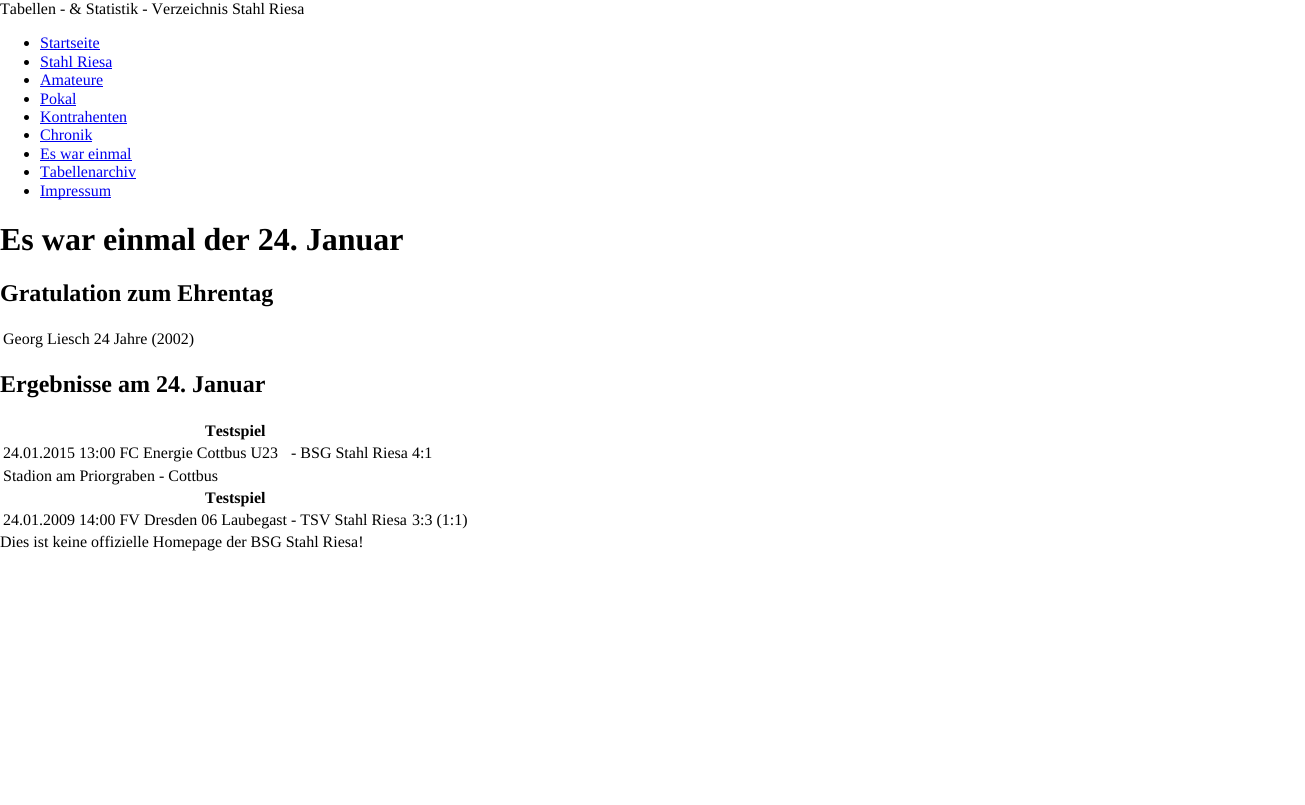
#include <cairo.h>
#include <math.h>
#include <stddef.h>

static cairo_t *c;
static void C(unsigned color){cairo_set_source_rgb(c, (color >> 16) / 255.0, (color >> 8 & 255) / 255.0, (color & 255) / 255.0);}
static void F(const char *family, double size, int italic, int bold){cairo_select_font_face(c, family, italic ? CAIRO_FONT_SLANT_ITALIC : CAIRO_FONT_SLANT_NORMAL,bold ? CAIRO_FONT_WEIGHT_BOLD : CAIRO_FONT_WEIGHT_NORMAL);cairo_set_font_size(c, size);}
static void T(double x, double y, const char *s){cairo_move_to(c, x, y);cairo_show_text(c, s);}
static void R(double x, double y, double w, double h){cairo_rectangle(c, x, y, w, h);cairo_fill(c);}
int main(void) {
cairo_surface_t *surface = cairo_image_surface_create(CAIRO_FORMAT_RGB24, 1305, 805);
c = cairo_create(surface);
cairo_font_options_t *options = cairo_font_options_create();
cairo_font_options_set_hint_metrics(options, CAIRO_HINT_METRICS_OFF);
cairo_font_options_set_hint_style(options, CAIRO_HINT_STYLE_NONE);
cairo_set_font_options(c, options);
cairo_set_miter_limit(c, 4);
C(0xffffff);
cairo_paint(c);
F("Liberation Serif",16,0,0);
C(0x000000);
T(0,14,"Tabellen - & Statistik - Verzeichnis Stahl Riesa");
cairo_new_path(c);
cairo_arc(c,26.5,43.5,2.5,0,2 * M_PI);
cairo_fill(c);
C(0x0000ee);
T(40,48,"Startseite");
R(40,49,60,1);
C(0x000000);
cairo_new_path(c);
cairo_arc(c,26.5,62.5,2.5,0,2 * M_PI);
cairo_fill(c);
C(0x0000ee);
T(40,67,"Stahl Riesa");
R(40,68,72,1);
C(0x000000);
cairo_new_path(c);
cairo_arc(c,26.5,80.5,2.5,0,2 * M_PI);
cairo_fill(c);
C(0x0000ee);
T(40,85,"Amateure");
R(40,86,63,1);
C(0x000000);
cairo_new_path(c);
cairo_arc(c,26.5,99.5,2.5,0,2 * M_PI);
cairo_fill(c);
C(0x0000ee);
T(40,104,"Pokal");
R(40,105,36,1);
C(0x000000);
cairo_new_path(c);
cairo_arc(c,26.5,117.5,2.5,0,2 * M_PI);
cairo_fill(c);
C(0x0000ee);
T(40,122,"Kontrahenten");
R(40,123,87,1);
C(0x000000);
cairo_new_path(c);
cairo_arc(c,26.5,135.5,2.5,0,2 * M_PI);
cairo_fill(c);
C(0x0000ee);
T(40,140,"Chronik");
R(40,141,52,1);
C(0x000000);
cairo_new_path(c);
cairo_arc(c,26.5,154.5,2.5,0,2 * M_PI);
cairo_fill(c);
C(0x0000ee);
T(40,159,"Es war einmal");
R(40,160,92,1);
C(0x000000);
cairo_new_path(c);
cairo_arc(c,26.5,172.5,2.5,0,2 * M_PI);
cairo_fill(c);
C(0x0000ee);
T(40,177,"Tabellenarchiv");
R(40,178,96,1);
C(0x000000);
cairo_new_path(c);
cairo_arc(c,26.5,191.5,2.5,0,2 * M_PI);
cairo_fill(c);
C(0x0000ee);
R(40,197,71,1);
T(40,196,"Impressum");
F("Liberation Serif",32,0,1);
C(0x000000);
T(0,250,"Es war einmal der 24. Januar");
F("Liberation Serif",24,0,1);
T(0,301,"Gratulation zum Ehrentag");
F("Liberation Serif",16,0,0);
T(3,344,"Georg Liesch 24 Jahre (2002)");
F("Liberation Serif",24,0,1);
T(0,392,"Ergebnisse am 24. Januar");
F("Liberation Serif",16,0,1);
T(205,436,"Testspiel");
F("Liberation Serif",16,0,0);
T(3,458,"24.01.2015 13:00 FC Energie Cottbus U23");
T(291,458,"- BSG Stahl Riesa 4:1");
T(3,481,"Stadion am Priorgraben - Cottbus");
F("Liberation Serif",16,0,1);
T(205,503,"Testspiel");
F("Liberation Serif",16,0,0);
T(3,525,"24.01.2009 14:00 FV Dresden 06 Laubegast - TSV Stahl Riesa");
T(412,525,"3:3 (1:1)");
T(0,547,"Dies ist keine offizielle Homepage der BSG Stahl Riesa!");
cairo_surface_write_to_png(surface, "o.png");
cairo_font_options_destroy(options);
cairo_destroy(c);
cairo_surface_destroy(surface);
return 0;
}
